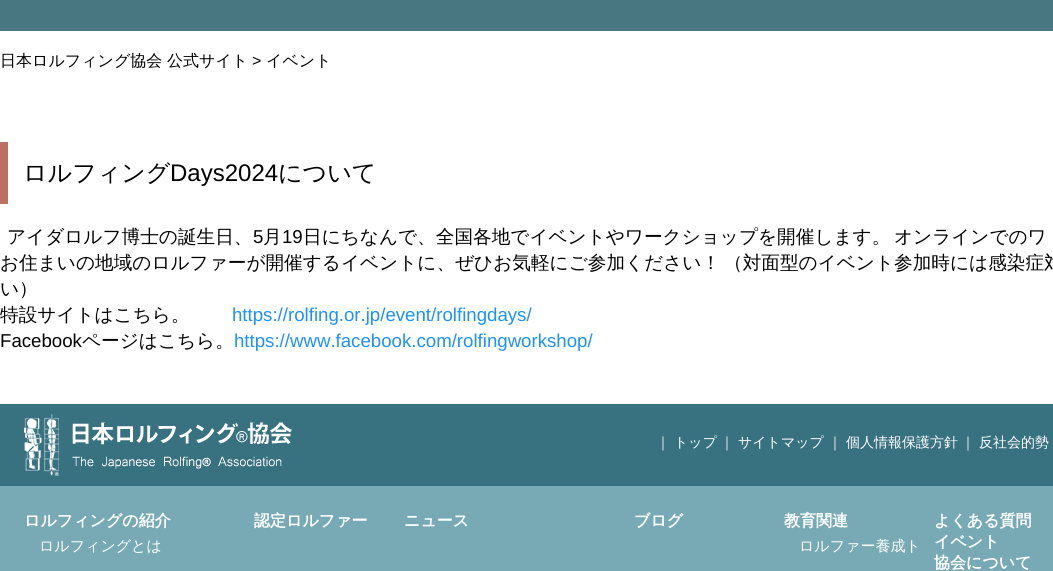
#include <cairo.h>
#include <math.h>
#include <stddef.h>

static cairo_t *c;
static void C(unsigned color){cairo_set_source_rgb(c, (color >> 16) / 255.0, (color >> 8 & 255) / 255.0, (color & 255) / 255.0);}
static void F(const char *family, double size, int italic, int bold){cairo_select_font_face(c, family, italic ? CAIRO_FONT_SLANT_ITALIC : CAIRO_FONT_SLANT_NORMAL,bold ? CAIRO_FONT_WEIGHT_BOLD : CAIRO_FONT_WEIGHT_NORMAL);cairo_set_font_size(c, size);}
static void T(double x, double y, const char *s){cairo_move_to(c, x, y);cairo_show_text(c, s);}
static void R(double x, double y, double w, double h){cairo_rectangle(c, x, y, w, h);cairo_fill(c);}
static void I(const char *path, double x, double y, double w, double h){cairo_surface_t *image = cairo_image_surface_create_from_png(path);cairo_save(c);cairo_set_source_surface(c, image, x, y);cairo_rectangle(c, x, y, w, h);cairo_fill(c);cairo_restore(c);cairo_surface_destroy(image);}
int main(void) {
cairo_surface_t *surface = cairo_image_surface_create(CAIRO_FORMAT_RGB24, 1053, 571);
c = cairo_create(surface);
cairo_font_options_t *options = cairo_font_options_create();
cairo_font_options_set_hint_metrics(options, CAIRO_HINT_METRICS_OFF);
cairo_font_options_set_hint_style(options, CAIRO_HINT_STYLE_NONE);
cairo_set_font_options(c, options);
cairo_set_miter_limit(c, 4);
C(0xffffff);
cairo_paint(c);
C(0x497781);
R(0,0,1053,31);
F("WenQuanYi Zen Hei Medium",16,0,0);
C(0x000000);
T(0,66,"日本ロルフィング協会 公式サイト");
F("Liberation Sans",16,0,0);
T(252,66,">");
F("WenQuanYi Zen Hei Medium",16,0,0);
T(266,66,"イベント");
C(0xbc7062);
R(0,142,8,62);
F("WenQuanYi Zen Hei Medium",24,0,0);
C(0x000000);
T(23,181,"ロルフィング");
F("Liberation Sans",24,0,0);
T(170,181,"Days2024");
F("WenQuanYi Zen Hei Medium",24,0,0);
T(278,181,"について");
F("WenQuanYi Zen Hei Medium",18.65,0,0);
T(7,243,"アイダロルフ博士の誕生日、");
F("Liberation Sans",18.65,0,0);
T(253,243,"5");
F("WenQuanYi Zen Hei Medium",18.65,0,0);
T(263,243,"月");
F("Liberation Sans",18.65,0,0);
T(282,243,"19");
F("WenQuanYi Zen Hei Medium",18.65,0,0);
T(303,243,"日にちなんで、全国各地でイベントやワークショップを開催します。");
T(894,243,"オンラインでのワ");
T(0,269,"お住まいの地域のロルファーが開催するイベントに、ぜひお気軽にご参加ください！");
T(724,269,"（対面型のイベント参加時には感染症対");
T(0,295,"い）");
T(0,321,"特設サイトはこちら。");
F("Liberation Sans",18.65,0,0);
C(0x1e90ff);
T(232,321,"https://rolfing.or.jp/event/rolfingdays/");
C(0x000000);
T(0,347,"Facebook");
F("WenQuanYi Zen Hei Medium",18.65,0,0);
T(82,347,"ページはこちら。");
F("Liberation Sans",18.65,0,0);
C(0x1e90ff);
T(234,347,"https://www.facebook.com/rolfingworkshop/");
C(0x387180);
R(0,404,1053,82);
I("1.png",24,414,268,62);
F("WenQuanYi Zen Hei Medium",14,0,0);
C(0xffffff);
T(656,447,"｜");
T(674,447,"トップ");
T(720,447,"｜ サイトマップ");
T(828,447,"｜ 個人情報保護方針");
T(961,447,"｜ 反社会的勢");
C(0x77aab5);
R(0,486,1053,85);
F("WenQuanYi Zen Hei",16,0,1);
C(0xffffff);
T(24,526,"ロルフィングの紹介");
F("WenQuanYi Zen Hei Medium",15,0,0);
T(39,551,"ロルフィングとは");
F("WenQuanYi Zen Hei",16,0,1);
T(254,526,"認定ロルファー");
T(404,526,"ニュース");
T(634,526,"ブログ");
T(784,526,"教育関連");
F("WenQuanYi Zen Hei Medium",15,0,0);
T(799,551,"ロルファー養成ト");
F("WenQuanYi Zen Hei",16,0,1);
T(934,526,"よくある質問");
T(934,547,"イベント");
T(934,568,"協会について");
cairo_surface_write_to_png(surface, "o.png");
cairo_font_options_destroy(options);
cairo_destroy(c);
cairo_surface_destroy(surface);
return 0;
}
